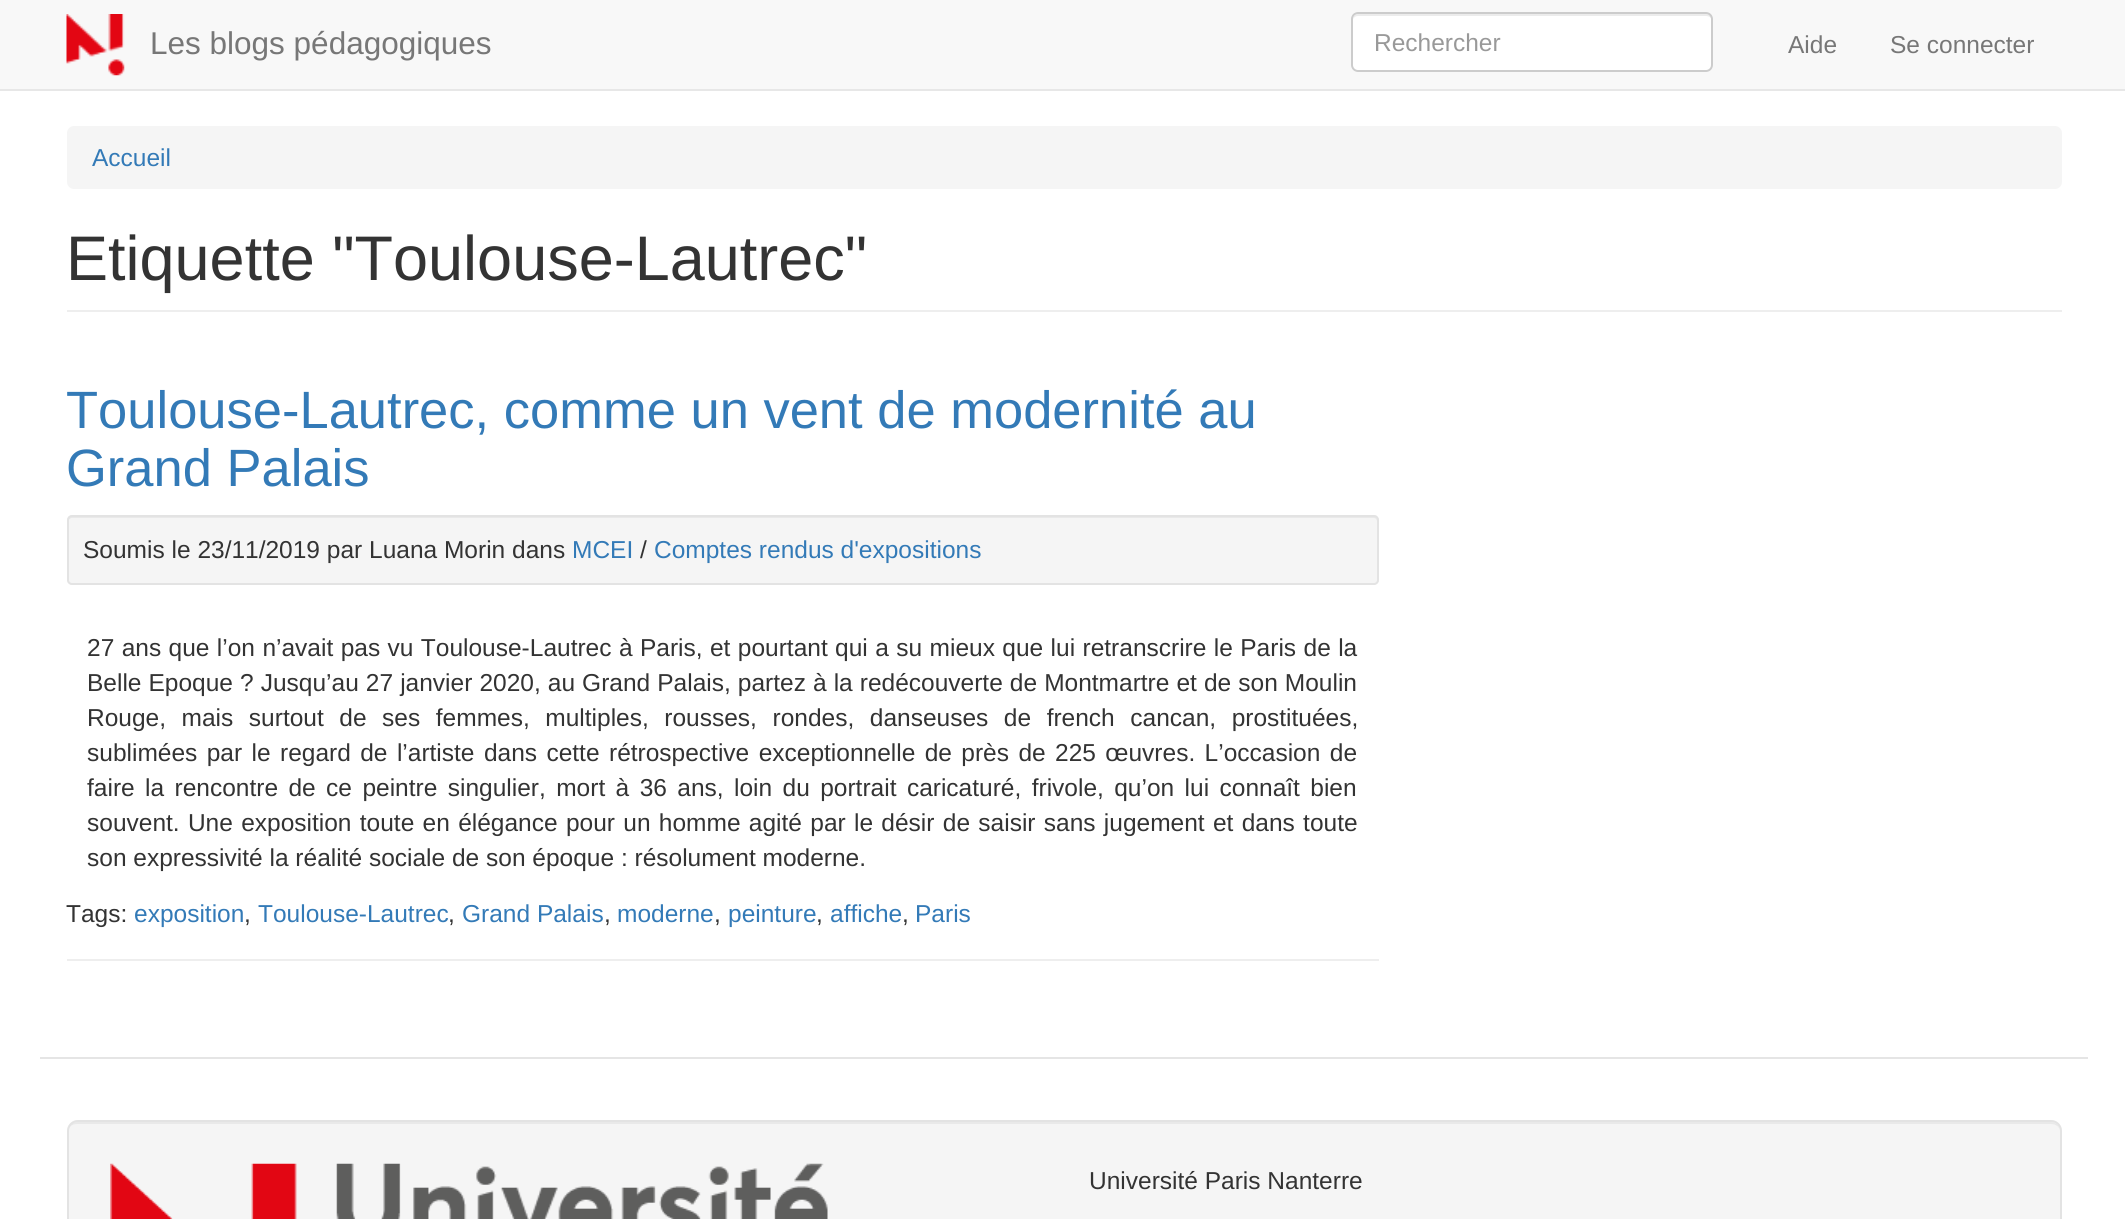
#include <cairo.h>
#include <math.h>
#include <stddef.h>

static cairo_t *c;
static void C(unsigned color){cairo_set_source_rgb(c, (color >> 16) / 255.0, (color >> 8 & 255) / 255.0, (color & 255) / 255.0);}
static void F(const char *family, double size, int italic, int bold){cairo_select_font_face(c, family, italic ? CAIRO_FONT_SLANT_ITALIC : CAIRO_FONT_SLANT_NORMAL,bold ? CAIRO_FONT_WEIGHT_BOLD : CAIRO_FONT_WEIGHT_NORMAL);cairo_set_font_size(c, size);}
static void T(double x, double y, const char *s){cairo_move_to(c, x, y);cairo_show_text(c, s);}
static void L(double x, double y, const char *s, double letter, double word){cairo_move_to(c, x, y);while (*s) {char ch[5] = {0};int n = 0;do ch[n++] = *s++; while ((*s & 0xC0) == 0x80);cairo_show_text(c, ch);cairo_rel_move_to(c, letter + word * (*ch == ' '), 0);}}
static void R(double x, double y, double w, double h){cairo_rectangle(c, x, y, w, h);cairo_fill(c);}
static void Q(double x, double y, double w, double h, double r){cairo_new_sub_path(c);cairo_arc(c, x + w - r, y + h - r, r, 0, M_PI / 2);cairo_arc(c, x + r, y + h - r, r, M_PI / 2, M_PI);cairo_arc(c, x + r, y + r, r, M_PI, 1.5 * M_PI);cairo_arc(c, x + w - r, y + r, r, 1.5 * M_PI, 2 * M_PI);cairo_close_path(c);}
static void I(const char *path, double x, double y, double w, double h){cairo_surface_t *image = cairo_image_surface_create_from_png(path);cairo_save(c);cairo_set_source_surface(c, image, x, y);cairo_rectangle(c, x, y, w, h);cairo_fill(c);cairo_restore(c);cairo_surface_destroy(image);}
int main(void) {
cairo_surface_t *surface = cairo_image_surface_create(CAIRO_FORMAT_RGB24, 2125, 1219);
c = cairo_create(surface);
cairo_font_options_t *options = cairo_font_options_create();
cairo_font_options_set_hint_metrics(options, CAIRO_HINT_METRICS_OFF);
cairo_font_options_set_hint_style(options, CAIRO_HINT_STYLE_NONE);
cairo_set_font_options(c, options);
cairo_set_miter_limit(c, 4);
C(0xffffff);
cairo_paint(c);
C(0xf8f8f8);
R(0,0,2125,89);
C(0xe7e7e7);
R(0,89,2125,2);
I("1.png",66,14,59,62);
F("Liberation Sans",31.5,0,0);
C(0x777777);
T(150,54,"Les blogs pédagogiques");
C(0xffffff);
Q(1351,12,362,60,7);
cairo_fill(c);
C(0xececec);
cairo_new_path(c);
cairo_move_to(c,1358,16);
cairo_line_to(c,1706,16);
cairo_curve_to(c,1709,16,1712,18,1712,21);
cairo_curve_to(c,1712,18,1711,14,1707,14);
cairo_line_to(c,1358,14);
cairo_curve_to(c,1354,14,1353,18,1353,21);
cairo_curve_to(c,1353,18,1355,16,1358,16);
cairo_close_path(c);
cairo_fill(c);
Q(1352,13,360,58,6);
C(0xcccccc);
cairo_stroke(c);
F("Liberation Sans",24.5,0,0);
C(0x999999);
T(1374,51,"Rechercher");
C(0x777777);
T(1788,53,"Aide");
T(1890,53,"Se connecter");
C(0xf5f5f5);
Q(67,126,1995,63,7);
cairo_fill(c);
C(0x337ab7);
T(92,166,"Accueil");
C(0xeeeeee);
R(67,310,1995,2);
F("Liberation Sans",63,0,0);
C(0x333333);
T(66,280,"Etiquette \"Toulouse-Lautrec\"");
C(0xeeeeee);
R(67,959,1312,2);
F("Liberation Sans",52.5,0,0);
C(0x337ab7);
T(66,428,"Toulouse-Lautrec, comme un vent de modernité au");
T(66,486,"Grand Palais");
C(0xf5f5f5);
Q(67,515,1312,70,5);
cairo_fill(c);
C(0xe9e9e9);
cairo_new_path(c);
cairo_move_to(c,72,518);
cairo_line_to(c,1374,518);
cairo_curve_to(c,1376,518,1377,520,1377,522);
cairo_curve_to(c,1377,519,1377,516,1373,516);
cairo_line_to(c,72,516);
cairo_curve_to(c,68,516,68,519,68,522);
cairo_curve_to(c,68,520,70,518,72,518);
cairo_close_path(c);
cairo_fill(c);
Q(68,516,1310,68,4);
C(0xe3e3e3);
cairo_stroke(c);
F("Liberation Sans",24.5,0,0);
C(0x333333);
T(83,558,"Soumis le 23/11/2019 par Luana Morin dans");
C(0x337ab7);
T(572,558,"MCEI");
C(0x333333);
T(640,558,"/");
C(0x337ab7);
T(654,558,"Comptes rendus d'expositions");
C(0x333333);
L(87,656,"27 ans que l’on n’avait pas vu Toulouse-Lautrec à Paris, et pourtant qui a su mieux que lui retranscrire le Paris de la",0,.6);
L(87,691,"Belle Epoque ? Jusqu’au 27 janvier 2020, au Grand Palais, partez à la redécouverte de Montmartre et de son Moulin",0,.25);
L(87,726,"Rouge, mais surtout de ses femmes, multiples, rousses, rondes, danseuses de french cancan, prostituées,",0,8.75);
L(87,761,"sublimées par le regard de l’artiste dans cette rétrospective exceptionnelle de près de 225 œuvres. L’occasion de",0,2.6);
L(87,796,"faire la rencontre de ce peintre singulier, mort à 36 ans, loin du portrait caricaturé, frivole, qu’on lui connaît bien",0,3.6);
L(87,831,"souvent. Une exposition toute en élégance pour un homme agité par le désir de saisir sans jugement et dans toute",0,1.5);
T(87,866,"son expressivité la réalité sociale de son époque : résolument moderne.");
T(66,922,"Tags:");
C(0x337ab7);
T(134,922,"exposition");
C(0x333333);
T(244,922,",");
C(0x337ab7);
T(258,922,"Toulouse-Lautrec");
C(0x333333);
T(448,922,",");
C(0x337ab7);
T(462,922,"Grand Palais");
C(0x333333);
T(604,922,",");
C(0x337ab7);
T(617,922,"moderne");
C(0x333333);
T(714,922,",");
C(0x337ab7);
T(728,922,"peinture");
C(0x333333);
T(816,922,",");
C(0x337ab7);
T(830,922,"affiche");
C(0x333333);
T(902,922,",");
C(0x337ab7);
T(915,922,"Paris");
C(0xe5e5e5);
R(40,1057,2048,2);
C(0xf5f5f5);
Q(67,1120,1995,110,11);
cairo_fill(c);
C(0xe9e9e9);
cairo_new_path(c);
cairo_move_to(c,77,1124);
cairo_line_to(c,2051,1124);
cairo_curve_to(c,2056,1124,2060,1127,2060,1132);
cairo_curve_to(c,2060,1127,2057,1122,2051,1122);
cairo_line_to(c,77,1122);
cairo_curve_to(c,71,1122,68,1127,68,1132);
cairo_curve_to(c,68,1127,72,1124,77,1124);
cairo_close_path(c);
cairo_fill(c);
Q(68,1121,1993,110,10);
C(0xe3e3e3);
cairo_stroke(c);
I("2.png",110,1163,718,56);
C(0x333333);
T(1089,1189,"Université Paris Nanterre");
cairo_surface_write_to_png(surface, "o.png");
cairo_font_options_destroy(options);
cairo_destroy(c);
cairo_surface_destroy(surface);
return 0;
}
